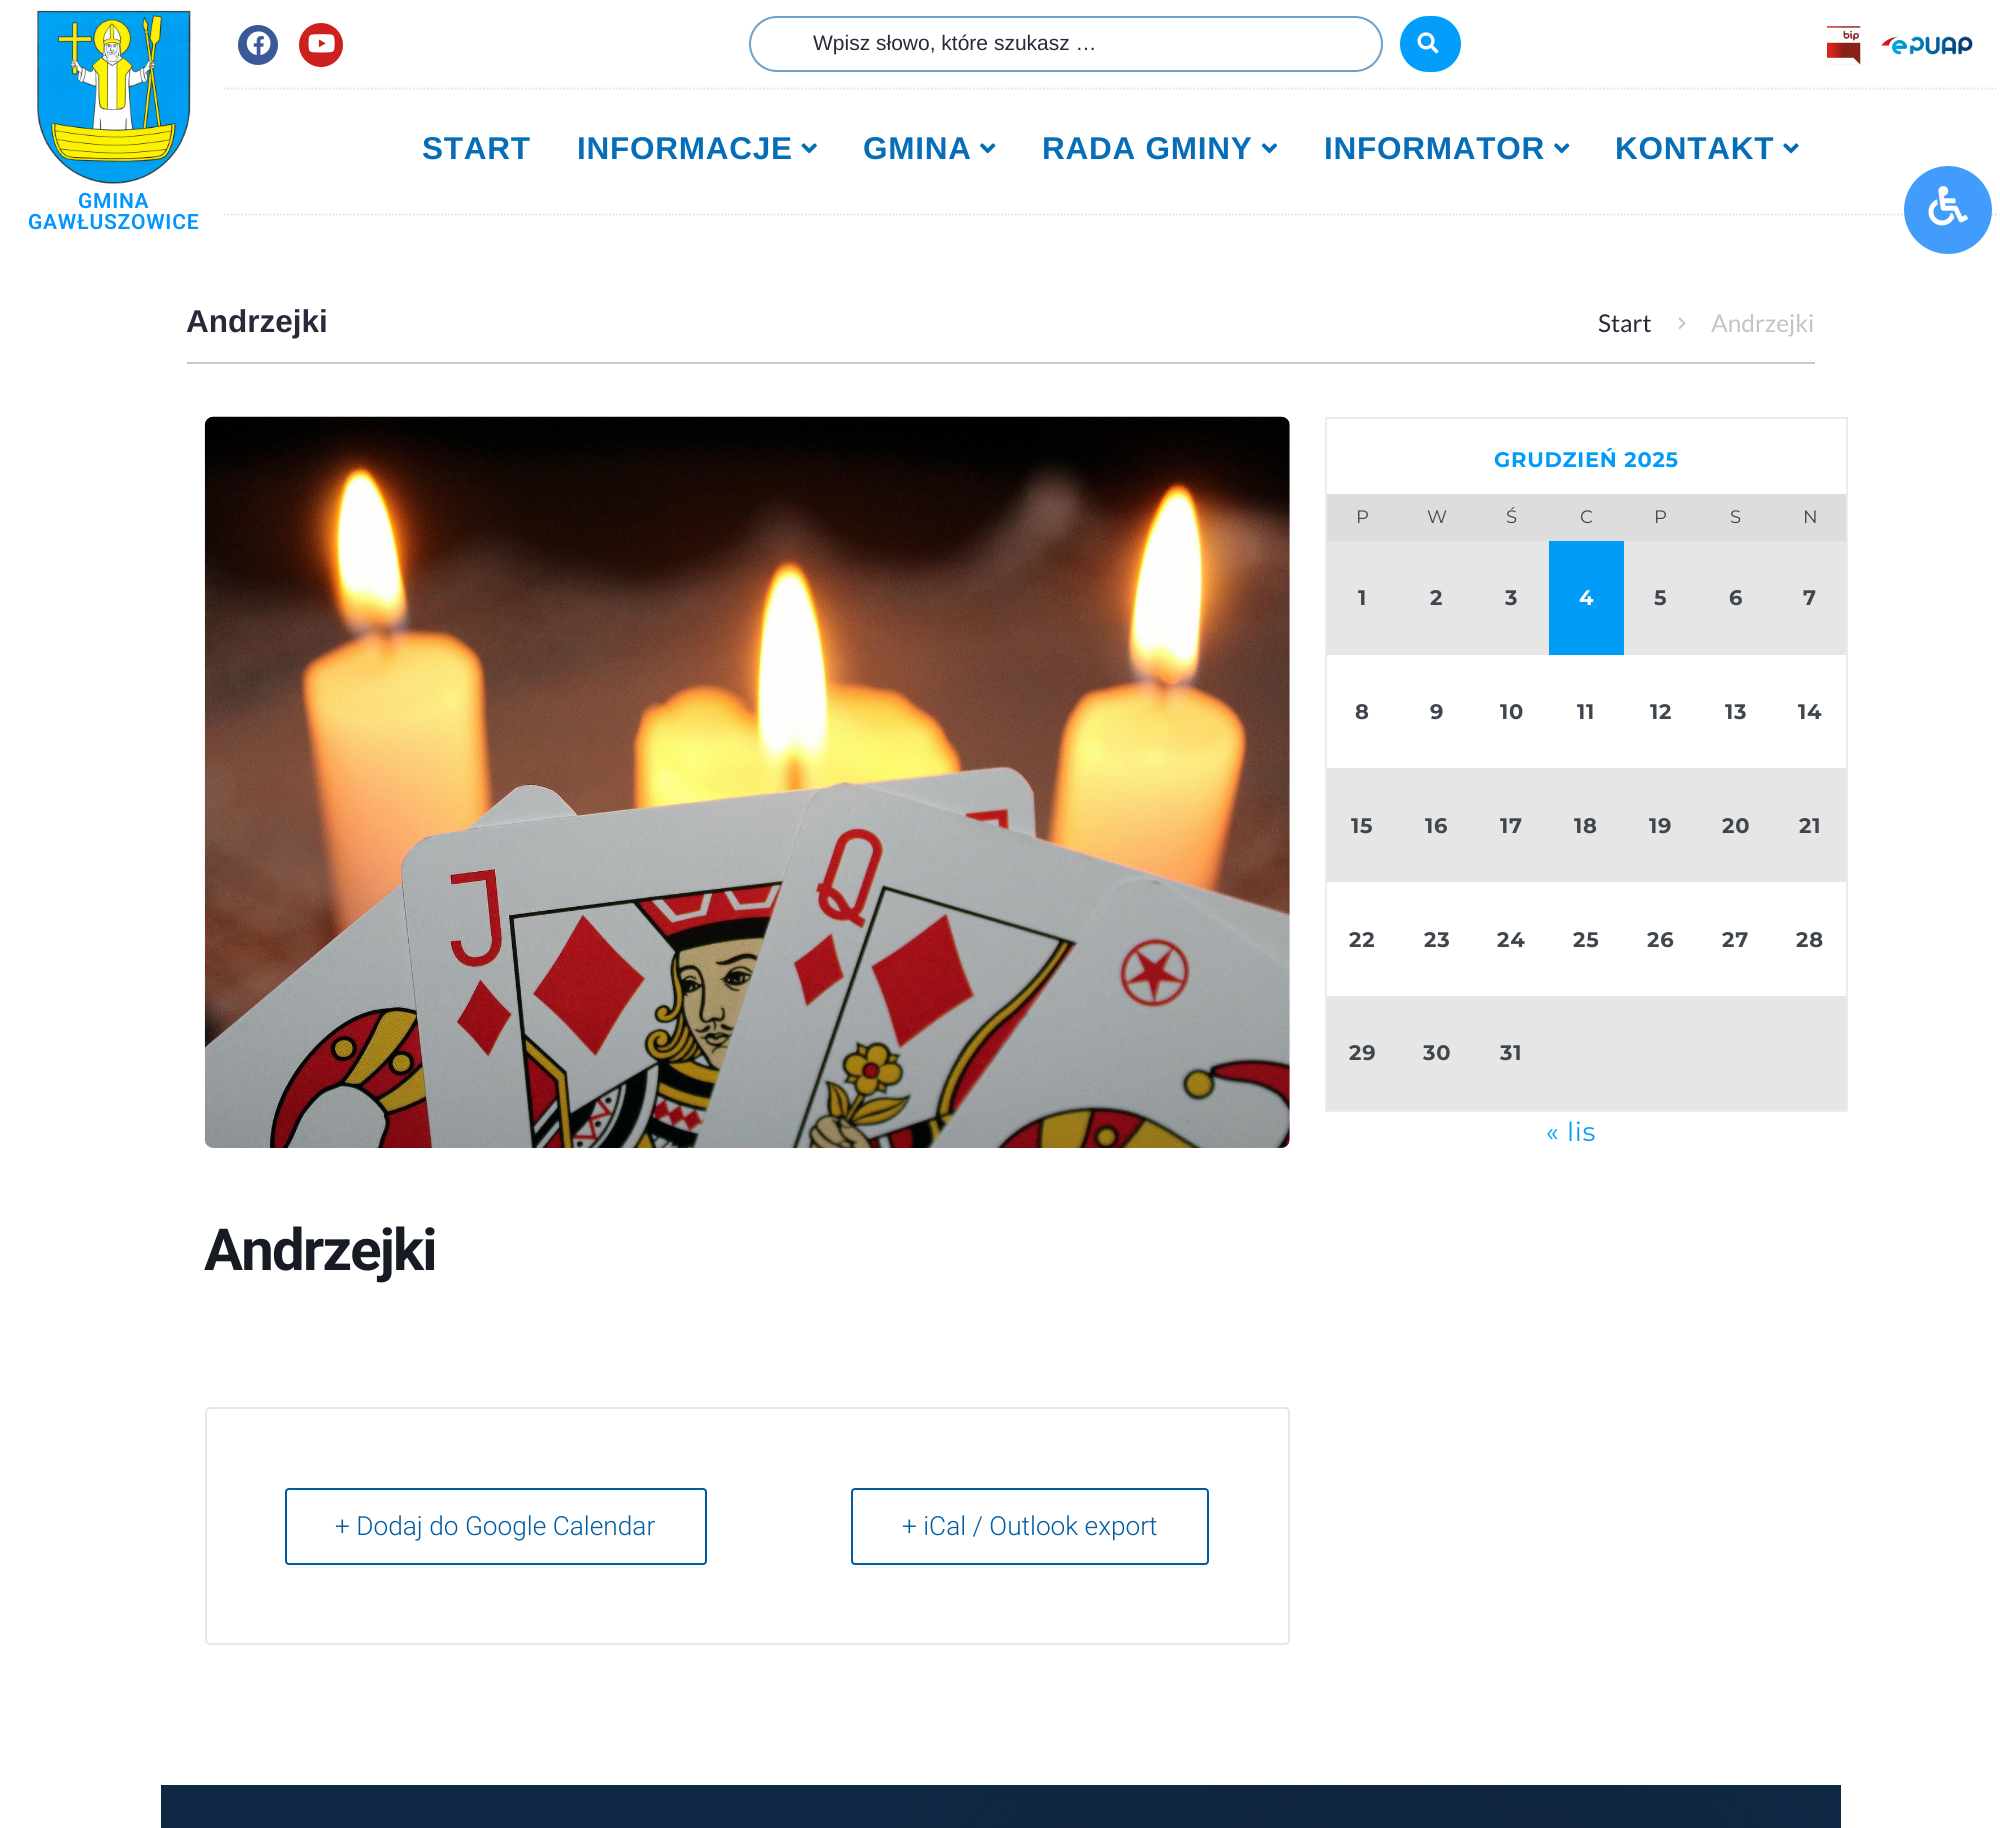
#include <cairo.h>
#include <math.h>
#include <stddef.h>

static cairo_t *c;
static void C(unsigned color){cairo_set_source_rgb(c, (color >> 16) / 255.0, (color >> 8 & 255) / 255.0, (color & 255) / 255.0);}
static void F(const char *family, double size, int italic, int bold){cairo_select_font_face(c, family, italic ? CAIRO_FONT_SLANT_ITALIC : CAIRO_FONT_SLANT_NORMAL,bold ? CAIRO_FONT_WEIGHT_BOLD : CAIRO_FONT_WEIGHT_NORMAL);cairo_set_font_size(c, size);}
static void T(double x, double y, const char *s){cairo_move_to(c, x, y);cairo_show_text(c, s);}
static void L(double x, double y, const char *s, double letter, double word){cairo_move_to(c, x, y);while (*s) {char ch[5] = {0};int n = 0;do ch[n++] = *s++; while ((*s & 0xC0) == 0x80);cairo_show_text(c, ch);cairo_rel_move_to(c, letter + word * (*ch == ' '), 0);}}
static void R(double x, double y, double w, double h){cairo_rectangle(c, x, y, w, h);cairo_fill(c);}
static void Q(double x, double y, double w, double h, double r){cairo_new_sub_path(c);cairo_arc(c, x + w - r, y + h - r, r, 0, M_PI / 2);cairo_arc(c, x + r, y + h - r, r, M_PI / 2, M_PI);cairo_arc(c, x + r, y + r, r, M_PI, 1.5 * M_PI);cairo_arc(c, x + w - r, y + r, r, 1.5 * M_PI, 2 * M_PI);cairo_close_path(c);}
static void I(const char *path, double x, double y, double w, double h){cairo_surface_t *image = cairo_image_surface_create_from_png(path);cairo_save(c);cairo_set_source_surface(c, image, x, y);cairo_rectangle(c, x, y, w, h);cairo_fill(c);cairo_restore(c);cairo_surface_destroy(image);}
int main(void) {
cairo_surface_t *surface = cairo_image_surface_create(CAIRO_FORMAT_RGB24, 2000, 1828);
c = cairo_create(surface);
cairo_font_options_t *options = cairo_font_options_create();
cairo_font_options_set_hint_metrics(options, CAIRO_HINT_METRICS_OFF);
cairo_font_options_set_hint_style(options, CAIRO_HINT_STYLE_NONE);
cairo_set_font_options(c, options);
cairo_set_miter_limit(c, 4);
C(0xffffff);
cairo_paint(c);
C(0x3b5998);
cairo_arc(c,258,45,20,0,2 * M_PI);
cairo_fill(c);
I("1.png",246,31,25,24);
C(0xcd201f);
cairo_arc(c,321,45,22,0,2 * M_PI);
cairo_fill(c);
I("2.png",308,34,27,19);
Q(750,17,632,54,27);
C(0x6ca0c8);
cairo_stroke(c);
F("Liberation Sans",21,0,0);
C(0x29293a);
T(813,50,"Wpisz słowo, które szukasz …");
C(0x039efb);
Q(1400,16,61,56,28);
cairo_fill(c);
I("3.png",1417,32,22,22);
I("4.png",1827,26,34,39);
I("5.png",1881,36,92,19);
cairo_new_path(c);
cairo_move_to(c,224,88.5);
cairo_line_to(c,1997,88.5);
C(0xe2e2e2);
cairo_set_line_width(c,1.8);
cairo_set_dash(c,(double[]){1.75,1.75},2,0);
cairo_stroke(c);
cairo_new_path(c);
cairo_move_to(c,224,214.5);
cairo_line_to(c,1997,214.5);
cairo_stroke(c);
F("Liberation Sans",31.5,0,1);
C(0x066eb8);
L(422,159,"START",.75,0);
L(577,159,"INFORMACJE",.75,0);
I("6.png",801,143,16,11);
L(863,159,"GMINA",.75,0);
I("7.png",980,143,16,11);
L(1042,159,"RADA GMINY",.75,0);
I("8.png",1261,143,17,11);
L(1324,159,"INFORMATOR",.75,0);
I("7.png",1554,143,16,11);
L(1615,159,"KONTAKT",.75,0);
I("9.png",1783,143,16,11);
I("10.png",37,10,154,174);
F("Roboto SemiBold",21,0,0);
C(0x0095ff);
L(78,208,"GMINA",.75,0);
L(28,229,"GAWŁUSZOWICE",.75,0);
C(0x429cfb);
cairo_new_path(c);
cairo_arc(c,1948,210,42,0,2 * M_PI);
cairo_fill_preserve(c);
cairo_set_line_width(c,4);
cairo_set_dash(c,NULL,0,0);
cairo_stroke(c);
I("11.png",1928,186,40,40);
C(0xc8c8ce);
R(187,362,1628,2);
F("Liberation Sans",31.5,0,1);
C(0x29293a);
T(186,332,"Andrzejki");
F("Lato",24.5,0,0);
T(1598,332,"Start");
I("12.png",1678,317,8,13);
C(0xc3c3c9);
T(1711,332,"Andrzejki");
C(0xececec);
R(1325,417,523,2);
R(1846,417,2,694);
R(1325,1110,523,2);
R(1325,417,2,694);
F("Montserrat",21,0,1);
C(0x019cf8);
L(1494,467,"GRUDZIEŃ 2025",.75,0);
C(0xdddddd);
R(1327,494,519,47);
F("Montserrat",18,0,0);
C(0x40464d);
L(1356,523,"P",.75,0);
L(1427,523,"W",.75,0);
L(1506,523,"Ś",.75,0);
L(1580,523,"C",.75,0);
L(1654,523,"P",.75,0);
L(1730,523,"S",.75,0);
L(1803,523,"N",.75,0);
C(0xe6e6e6);
R(1327,541,519,114);
F("Montserrat",21,0,1);
C(0x40464d);
L(1358,605,"1",.75,0);
L(1430,605,"2",.75,0);
L(1505,605,"3",.75,0);
C(0x019cf8);
R(1549,541,75,114);
C(0xffffff);
L(1579,605,"4",.75,0);
C(0x40464d);
L(1654,605,"5",.75,0);
L(1729,605,"6",.75,0);
L(1803,605,"7",.75,0);
L(1355,719,"8",.75,0);
L(1430,719,"9",.75,0);
L(1500,719,"10",.75,0);
L(1577,719,"11",.75,0);
L(1650,719,"12",.75,0);
L(1725,719,"13",.75,0);
L(1798,719,"14",.75,0);
C(0xe6e6e6);
R(1327,768,519,114);
C(0x40464d);
L(1351,833,"15",.75,0);
L(1425,833,"16",.75,0);
L(1500,833,"17",.75,0);
L(1574,833,"18",.75,0);
L(1649,833,"19",.75,0);
L(1722,833,"20",.75,0);
L(1799,833,"21",.75,0);
L(1349,947,"22",.75,0);
L(1424,947,"23",.75,0);
L(1497,947,"24",.75,0);
L(1573,947,"25",.75,0);
L(1647,947,"26",.75,0);
L(1722,947,"27",.75,0);
L(1796,947,"28",.75,0);
C(0xe6e6e6);
R(1327,996,519,114);
C(0x40464d);
L(1349,1060,"29",.75,0);
L(1423,1060,"30",.75,0);
L(1500,1060,"31",.75,0);
F("Montserrat",26.25,0,0);
C(0x019cf8);
L(1546,1141,"« lis",.75,0);
I("13.png",204,416,1086,732);
F("Roboto",58,0,1);
C(0x171c24);
L(204,1270,"Andrzejki",-1.75,0);
Q(206,1408,1083,236,4);
C(0xe6e7e8);
cairo_set_line_width(c,2);
cairo_stroke(c);
C(0xf7f7f7);
cairo_new_path(c);
cairo_move_to(c,285,1494);
cairo_line_to(c,285,1564);
cairo_curve_to(c,285,1566,287,1568,289,1568);
cairo_line_to(c,703,1568);
cairo_curve_to(c,705,1568,707,1566,707,1564);
cairo_line_to(c,707,1561);
cairo_curve_to(c,707,1563,705,1564,704,1564);
cairo_line_to(c,289,1564);
cairo_curve_to(c,287,1564,285,1563,285,1561);
cairo_close_path(c);
cairo_fill(c);
C(0xffffff);
Q(286,1489,420,75,3);
cairo_fill_preserve(c);
C(0x015ba0);
cairo_stroke(c);
F("Roboto Light",26.25,0,0);
T(335,1535,"+ Dodaj do Google Calendar");
C(0xf7f7f7);
cairo_new_path(c);
cairo_move_to(c,851,1563);
cairo_line_to(c,851,1564);
cairo_curve_to(c,851,1566,853,1568,855,1568);
cairo_line_to(c,1205,1568);
cairo_curve_to(c,1207,1568,1209,1566,1209,1564);
cairo_line_to(c,1209,1562);
cairo_curve_to(c,1208,1564,1207,1564,1206,1564);
cairo_line_to(c,854,1564);
cairo_curve_to(c,853,1564,852,1564,851,1563);
cairo_close_path(c);
cairo_fill(c);
C(0xffffff);
Q(852,1489,356,75,3);
cairo_fill_preserve(c);
C(0x015ba0);
cairo_stroke(c);
T(902,1535,"+ iCal / Outlook export");
C(0x152941);
R(161,1785,1680,43);
I("14.png",161,1785,1680,43);
cairo_surface_write_to_png(surface, "o.png");
cairo_font_options_destroy(options);
cairo_destroy(c);
cairo_surface_destroy(surface);
return 0;
}
